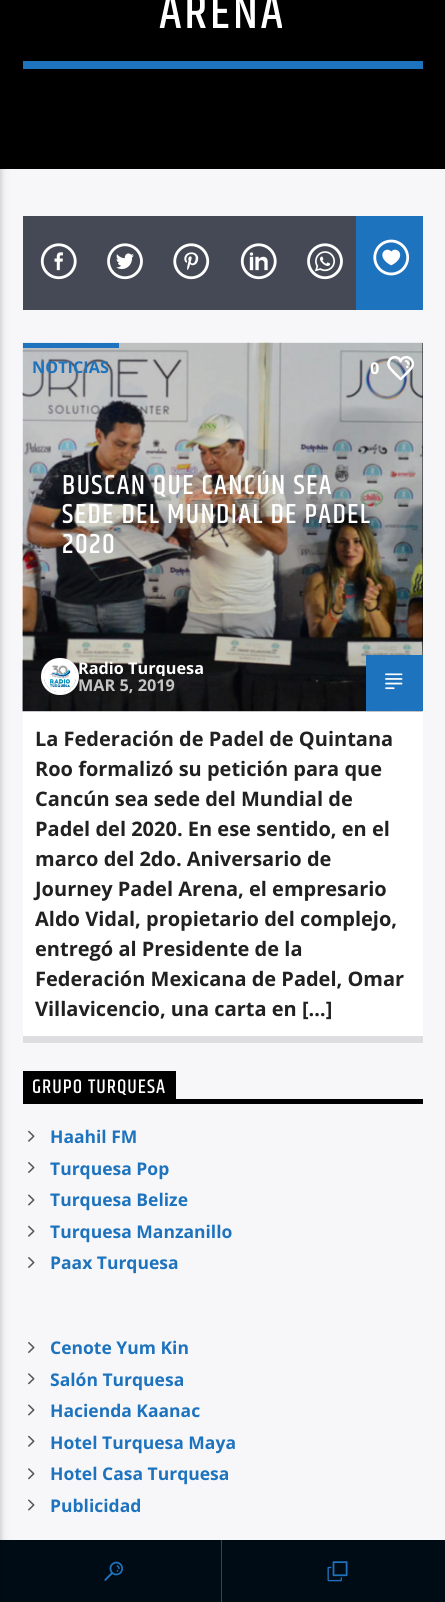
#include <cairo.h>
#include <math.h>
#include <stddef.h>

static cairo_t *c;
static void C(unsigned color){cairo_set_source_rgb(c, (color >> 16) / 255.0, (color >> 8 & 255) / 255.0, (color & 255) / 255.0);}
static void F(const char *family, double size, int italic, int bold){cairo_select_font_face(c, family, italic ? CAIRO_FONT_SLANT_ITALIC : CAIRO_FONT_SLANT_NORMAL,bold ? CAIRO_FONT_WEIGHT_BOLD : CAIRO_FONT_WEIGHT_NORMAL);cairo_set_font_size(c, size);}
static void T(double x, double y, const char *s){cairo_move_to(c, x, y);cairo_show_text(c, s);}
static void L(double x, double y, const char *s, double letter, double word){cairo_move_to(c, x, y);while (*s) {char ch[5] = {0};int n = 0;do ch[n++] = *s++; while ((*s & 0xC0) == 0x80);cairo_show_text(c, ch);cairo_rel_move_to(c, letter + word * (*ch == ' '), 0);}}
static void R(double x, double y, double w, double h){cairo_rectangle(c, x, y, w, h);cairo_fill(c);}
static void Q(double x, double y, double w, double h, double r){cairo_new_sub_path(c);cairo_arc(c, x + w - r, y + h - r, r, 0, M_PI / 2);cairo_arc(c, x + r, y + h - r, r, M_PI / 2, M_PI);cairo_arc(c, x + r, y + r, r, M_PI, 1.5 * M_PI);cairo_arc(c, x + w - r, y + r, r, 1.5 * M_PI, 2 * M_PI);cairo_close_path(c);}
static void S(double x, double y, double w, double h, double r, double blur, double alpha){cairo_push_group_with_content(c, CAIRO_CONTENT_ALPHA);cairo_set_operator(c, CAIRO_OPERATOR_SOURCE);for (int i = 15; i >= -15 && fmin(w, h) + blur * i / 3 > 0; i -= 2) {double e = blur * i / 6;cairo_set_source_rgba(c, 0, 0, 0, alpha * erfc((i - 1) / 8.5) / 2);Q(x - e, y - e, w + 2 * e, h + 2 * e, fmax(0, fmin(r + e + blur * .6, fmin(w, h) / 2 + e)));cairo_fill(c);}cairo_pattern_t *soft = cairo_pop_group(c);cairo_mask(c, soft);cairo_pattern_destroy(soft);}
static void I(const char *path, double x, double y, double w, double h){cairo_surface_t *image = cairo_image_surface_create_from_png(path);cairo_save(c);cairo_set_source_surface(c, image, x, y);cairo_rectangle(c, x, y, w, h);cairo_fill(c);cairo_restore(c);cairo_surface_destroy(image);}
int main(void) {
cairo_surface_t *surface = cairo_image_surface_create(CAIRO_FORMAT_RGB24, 445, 1602);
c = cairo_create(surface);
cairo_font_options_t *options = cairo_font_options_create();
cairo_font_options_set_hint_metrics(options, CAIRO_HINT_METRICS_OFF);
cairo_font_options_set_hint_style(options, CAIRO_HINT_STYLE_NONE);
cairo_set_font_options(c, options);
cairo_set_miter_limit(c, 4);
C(0xf7f7f9);
cairo_paint(c);
C(0x000000);
R(0,0,445,169);
C(0x000c15);
R(0,1540,445,62);
C(0x000000);
S(-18,3,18,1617,0,6,.12);
S(-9,3,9,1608,0,3,.16);
C(0x1e73be);
R(23,61,400,8);
F("Khand Medium",50,0,0);
C(0xffffff);
L(159,28,"ARENA",2.5,0);
C(0x454955);
R(23,216,333,94);
I("1.png",40,243,37,37);
I("2.png",107,243,36,37);
I("3.png",173,243,37,37);
I("4.png",240,243,37,37);
I("5.png",307,243,36,37);
C(0x1e73be);
R(356,216,67,94);
I("6.png",373,239,37,37);
C(0x000000);
R(23,343,400,368);
C(0xdedee0);
cairo_new_path(c);
cairo_move_to(c,23,1036);
cairo_line_to(c,23,1043);
cairo_line_to(c,423,1043);
cairo_line_to(c,423,718);
cairo_line_to(c,422,718);
cairo_line_to(c,422,1036);
cairo_close_path(c);
cairo_fill(c);
C(0xffffff);
R(23,711,400,325);
I("7.png",22,342,401,370);
C(0x1e73be);
R(23,343,96,5);
F("Open Sans",16.25,0,1);
T(32,373,"NOTICIAS");
C(0xffffff);
T(370,374,"0");
I("8.png",387,356,27,25);
F("Khand Medium",28,0,0);
L(62,494,"BUSCAN QUE CANCÚN SEA",1.4,0);
L(62,523,"SEDE DEL MUNDIAL DE PADEL",1.4,0);
L(62,553,"2020",1.4,0);
Q(42.5,659.5,35,34,17);
cairo_set_line_width(c,3);
cairo_stroke(c);
I("9.png",44,661,32,31);
cairo_save(c);
cairo_rectangle(c,79,658,125,18);
cairo_clip(c);
F("Open Sans",16.25,0,1);
T(78,674,"Radio Turquesa");
cairo_restore(c);
F("Open Sans",16.25,0,1);
C(0xc5c5c5);
T(78,691,"MAR 5, 2019");
C(0x1e73be);
R(366,655,57,56);
I("10.png",385,673,18,17);
F("Open Sans",20,0,1);
C(0x212121);
T(35,746,"La Federación de Padel de Quintana");
T(35,776,"Roo formalizó su petición para que");
T(35,806,"Cancún sea sede del Mundial de");
T(35,836,"Padel del 2020. En ese sentido, en el");
T(35,866,"marco del 2do. Aniversario de");
T(35,896,"Journey Padel Arena, el empresario");
T(35,926,"Aldo Vidal, propietario del complejo,");
T(35,956,"entregó al Presidente de la");
T(35,986,"Federación Mexicana de Padel, Omar");
T(35,1016,"Villavicencio, una carta en […]");
C(0x000000);
R(176,1099,247,5);
R(23,1071,153,33);
F("Khand Medium",20,0,0);
C(0xffffff);
L(32,1093,"GRUPO TURQUESA",1,0);
I("11.png",28,1130,7,12);
F("Open Sans",17.5,0,1);
C(0x1e73be);
T(50,1143,"Haahil FM");
I("12.png",28,1162,7,11);
T(50,1175,"Turquesa Pop");
I("13.png",28,1194,7,12);
T(50,1206,"Turquesa Belize");
I("11.png",28,1225,7,12);
T(50,1238,"Turquesa Manzanillo");
I("12.png",28,1257,7,11);
T(50,1269,"Paax Turquesa");
I("12.png",28,1342,7,11);
T(50,1354,"Cenote Yum Kin");
I("14.png",28,1373,7,12);
T(50,1386,"Salón Turquesa");
I("13.png",28,1404,7,12);
T(50,1417,"Hacienda Kaanac");
I("11.png",28,1435,7,12);
T(50,1449,"Hotel Turquesa Maya");
I("14.png",28,1468,7,12);
T(50,1480,"Hotel Casa Turquesa");
I("13.png",28,1499,7,12);
T(50,1512,"Publicidad");
C(0x3c444b);
R(221,1540,1,62);
I("15.png",104,1561,19,20);
I("16.png",327,1561,21,21);
cairo_surface_write_to_png(surface, "o.png");
cairo_font_options_destroy(options);
cairo_destroy(c);
cairo_surface_destroy(surface);
return 0;
}
